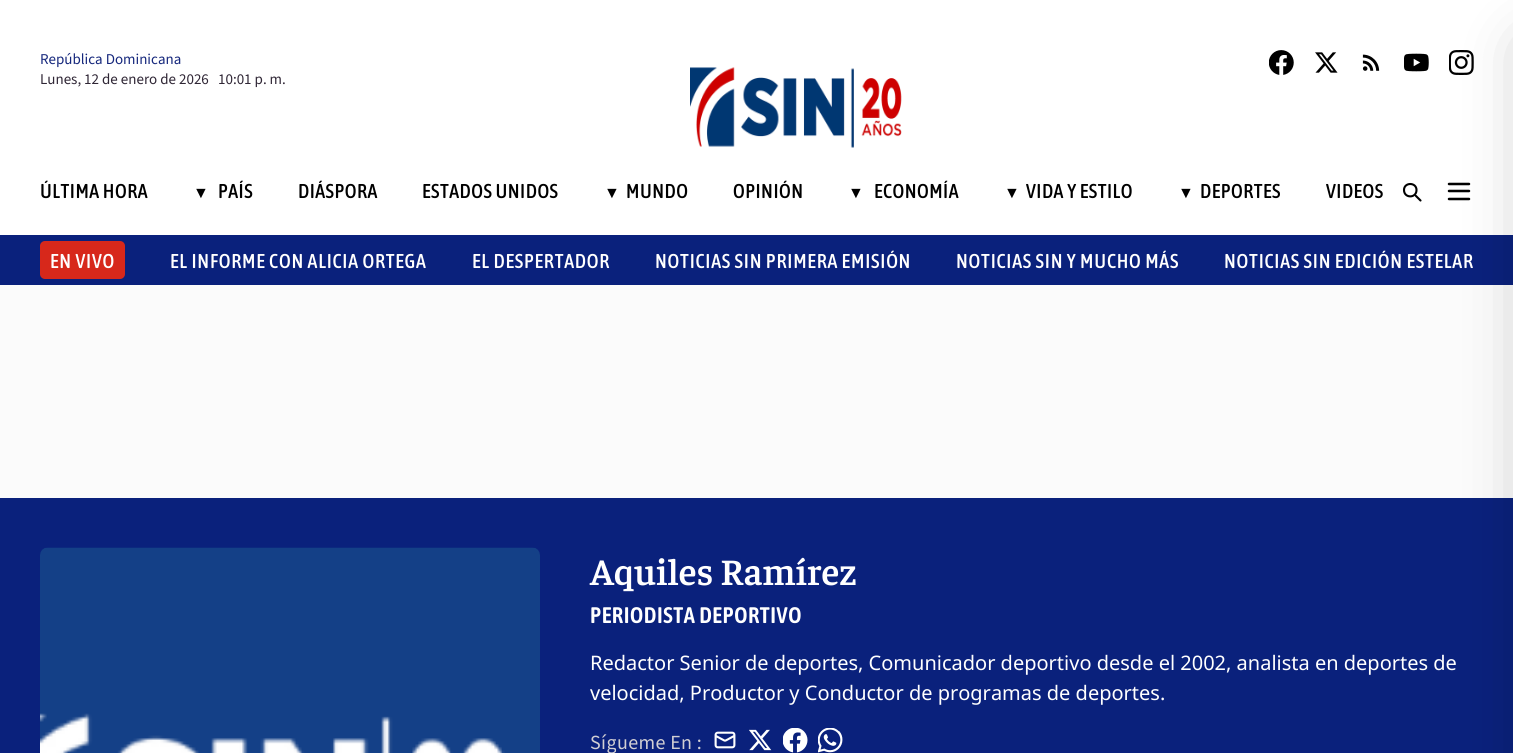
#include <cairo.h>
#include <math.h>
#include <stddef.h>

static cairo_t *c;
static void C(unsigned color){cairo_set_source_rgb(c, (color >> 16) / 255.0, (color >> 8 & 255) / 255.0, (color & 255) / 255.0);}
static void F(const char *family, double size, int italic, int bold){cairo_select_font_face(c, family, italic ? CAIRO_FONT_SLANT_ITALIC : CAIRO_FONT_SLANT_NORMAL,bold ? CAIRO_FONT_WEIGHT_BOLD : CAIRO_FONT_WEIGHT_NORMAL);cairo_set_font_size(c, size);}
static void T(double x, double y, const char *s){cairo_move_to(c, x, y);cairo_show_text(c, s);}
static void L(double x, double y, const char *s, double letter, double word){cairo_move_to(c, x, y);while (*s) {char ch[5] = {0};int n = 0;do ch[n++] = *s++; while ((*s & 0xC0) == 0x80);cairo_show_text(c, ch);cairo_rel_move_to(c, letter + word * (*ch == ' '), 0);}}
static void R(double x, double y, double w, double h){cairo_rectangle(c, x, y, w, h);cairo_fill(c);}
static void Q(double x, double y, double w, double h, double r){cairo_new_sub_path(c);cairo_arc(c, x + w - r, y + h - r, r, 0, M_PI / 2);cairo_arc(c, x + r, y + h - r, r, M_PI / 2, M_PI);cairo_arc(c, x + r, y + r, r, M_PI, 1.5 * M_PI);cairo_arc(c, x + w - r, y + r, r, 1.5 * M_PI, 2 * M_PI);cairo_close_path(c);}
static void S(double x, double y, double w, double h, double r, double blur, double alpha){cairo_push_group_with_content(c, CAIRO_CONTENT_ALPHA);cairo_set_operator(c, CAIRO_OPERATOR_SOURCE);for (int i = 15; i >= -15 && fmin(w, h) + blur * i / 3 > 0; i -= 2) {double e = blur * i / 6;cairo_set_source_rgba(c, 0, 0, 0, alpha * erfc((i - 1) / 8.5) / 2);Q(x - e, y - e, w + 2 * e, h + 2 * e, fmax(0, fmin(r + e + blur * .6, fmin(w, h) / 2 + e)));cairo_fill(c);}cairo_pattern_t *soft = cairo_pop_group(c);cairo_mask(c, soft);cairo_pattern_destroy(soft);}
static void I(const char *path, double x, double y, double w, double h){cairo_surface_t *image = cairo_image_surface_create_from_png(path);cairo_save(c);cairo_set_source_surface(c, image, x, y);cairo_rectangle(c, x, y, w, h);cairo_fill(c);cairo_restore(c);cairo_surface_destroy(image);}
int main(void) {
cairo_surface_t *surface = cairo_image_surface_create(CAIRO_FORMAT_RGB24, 1513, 753);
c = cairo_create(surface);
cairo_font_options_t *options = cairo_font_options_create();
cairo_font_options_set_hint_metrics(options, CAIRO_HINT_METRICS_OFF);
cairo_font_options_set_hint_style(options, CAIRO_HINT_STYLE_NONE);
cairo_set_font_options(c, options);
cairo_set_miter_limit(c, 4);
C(0xfbfbfb);
cairo_paint(c);
C(0xffffff);
R(0,0,1513,235);
F("Source Sans 3",15,0,0);
C(0x15277c);
T(40,64,"República Dominicana");
C(0x2f2635);
T(40,84,"Lunes, 12 de enero de 2026");
T(218,84,"10:01 p. m.");
I("1.png",690,67,212,81);
I("2.png",1269,50,25,25);
I("3.png",1315,52,23,21);
I("4.png",1362,54,18,17);
I("5.png",1404,53,25,19);
I("6.png",1449,50,25,25);
cairo_new_path(c);
cairo_move_to(c,1449,184);
cairo_line_to(c,1469,184);
cairo_move_to(c,1449,191);
cairo_line_to(c,1469,191);
cairo_move_to(c,1449,199);
cairo_line_to(c,1469,199);
C(0x000000);
cairo_set_line_width(c,2.5);
cairo_set_line_cap(c,CAIRO_LINE_CAP_ROUND);
cairo_set_line_join(c,CAIRO_LINE_JOIN_ROUND);
cairo_stroke(c);
C(0x0a217c);
R(0,235,1513,50);
R(0,498,1513,255);
C(0x000000);
S(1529,46,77,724,0,31,.25);
F("Asap Condensed Medium",20,0,0);
C(0x000000);
L(40,198,"ÚLTIMA HORA",.5,0);
F("Liberation Sans",16,0,0);
L(193,198,"▼",.5,0);
F("Asap Condensed Medium",20,0,0);
L(218,198,"PAÍS",.5,0);
L(298,198,"DIÁSPORA",.5,0);
L(422,198,"ESTADOS UNIDOS",.5,0);
F("Liberation Sans",16,0,0);
L(604,198,"▼",.5,0);
F("Asap Condensed Medium",20,0,0);
L(626,198,"MUNDO",.5,0);
L(733,198,"OPINIÓN",.5,0);
F("Liberation Sans",16,0,0);
L(848,198,"▼",.5,0);
F("Asap Condensed Medium",20,0,0);
L(874,198,"ECONOMÍA",.5,0);
F("Liberation Sans",16,0,0);
L(1004,198,"▼",.5,0);
F("Asap Condensed Medium",20,0,0);
L(1026,198,"VIDA Y ESTILO",.5,0);
F("Liberation Sans",16,0,0);
L(1178,198,"▼",.5,0);
F("Asap Condensed Medium",20,0,0);
L(1200,198,"DEPORTES",.5,0);
L(1326,198,"VIDEOS",.5,0);
cairo_new_path(c);
cairo_move_to(c,1420.5,200.5);
cairo_line_to(c,1416,196);
cairo_move_to(c,1416.5,190);
cairo_curve_to(c,1416.5,198.5,1404,198.5,1404,190);
cairo_curve_to(c,1404,182,1416.5,182,1416.5,190);
cairo_close_path(c);
cairo_set_line_width(c,2.1);
cairo_stroke(c);
C(0xd7281b);
Q(40,241,85,38,5);
cairo_fill(c);
C(0xffffff);
L(50,268,"EN VIVO",.8,0);
L(170,268,"EL INFORME CON ALICIA ORTEGA",.8,0);
L(472,268,"EL DESPERTADOR",.8,0);
L(655,268,"NOTICIAS SIN PRIMERA EMISIÓN",.8,0);
L(956,268,"NOTICIAS SIN Y MUCHO MÁS",.8,0);
L(1224,268,"NOTICIAS SIN EDICIÓN ESTELAR",.8,0);
I("7.png",40,547,500,206);
F("Faustina SemiBold",37.5,0,0);
T(590,585,"Aquiles Ramírez");
F("Asap Condensed SemiBold",22.5,0,0);
L(590,623,"PERIODISTA DEPORTIVO",.6,0);
F("Noto Sans",20,0,0);
T(590,670,"Redactor Senior de deportes, Comunicador deportivo desde el 2002, analista en deportes de");
T(590,700,"velocidad, Productor y Conductor de programas de deportes.");
F("Source Sans 3",20,0,0);
C(0xd1cfd3);
L(590,749,"Sígueme En :",.4,0);
I("8.png",714,731,22,18);
I("9.png",749,729,23,22);
I("10.png",783,728,25,25);
I("11.png",818,728,25,25);
cairo_surface_write_to_png(surface, "o.png");
cairo_font_options_destroy(options);
cairo_destroy(c);
cairo_surface_destroy(surface);
return 0;
}
